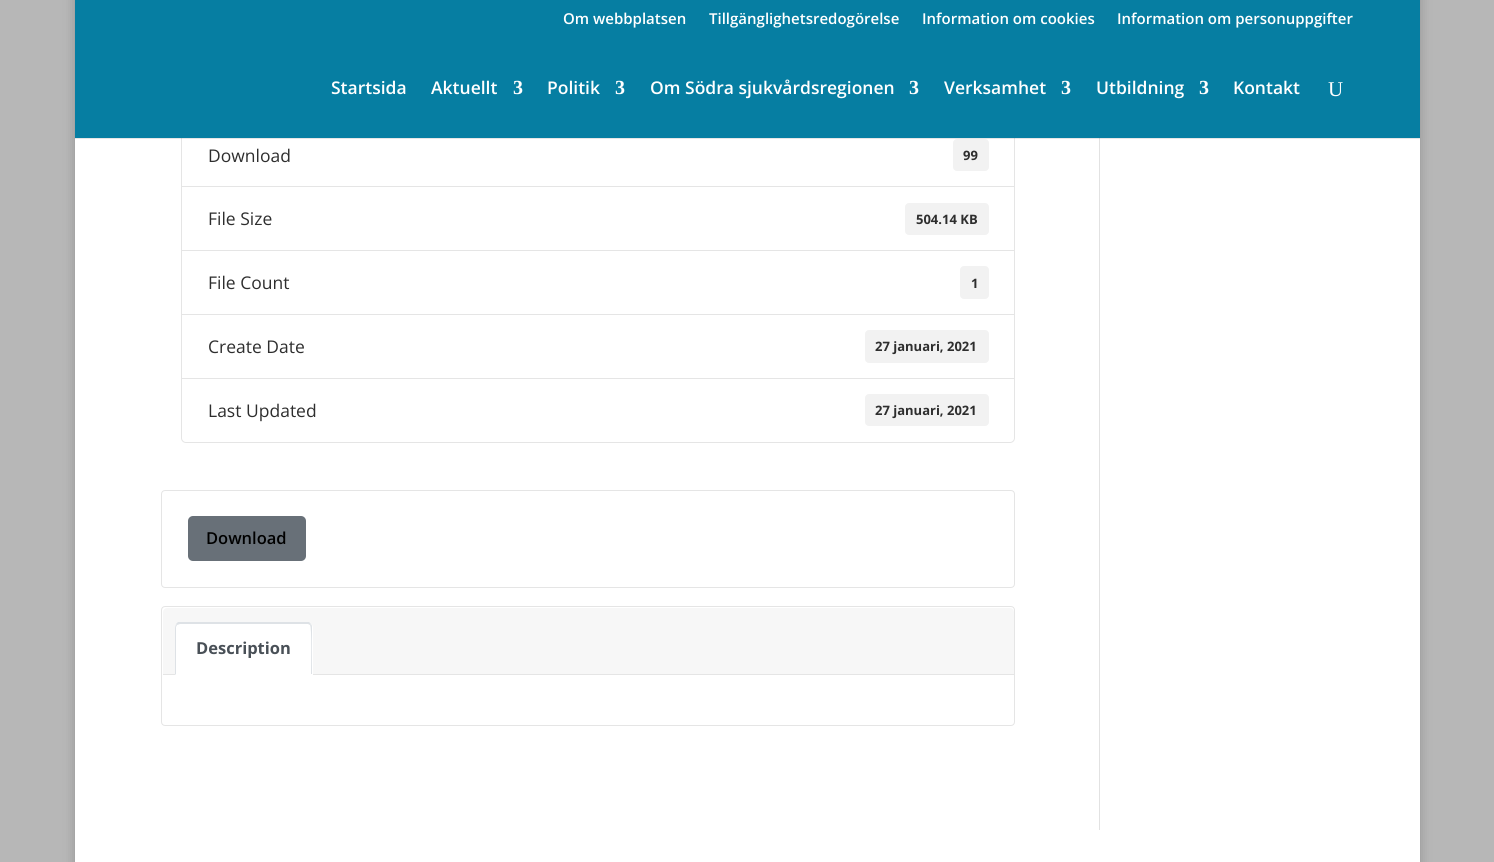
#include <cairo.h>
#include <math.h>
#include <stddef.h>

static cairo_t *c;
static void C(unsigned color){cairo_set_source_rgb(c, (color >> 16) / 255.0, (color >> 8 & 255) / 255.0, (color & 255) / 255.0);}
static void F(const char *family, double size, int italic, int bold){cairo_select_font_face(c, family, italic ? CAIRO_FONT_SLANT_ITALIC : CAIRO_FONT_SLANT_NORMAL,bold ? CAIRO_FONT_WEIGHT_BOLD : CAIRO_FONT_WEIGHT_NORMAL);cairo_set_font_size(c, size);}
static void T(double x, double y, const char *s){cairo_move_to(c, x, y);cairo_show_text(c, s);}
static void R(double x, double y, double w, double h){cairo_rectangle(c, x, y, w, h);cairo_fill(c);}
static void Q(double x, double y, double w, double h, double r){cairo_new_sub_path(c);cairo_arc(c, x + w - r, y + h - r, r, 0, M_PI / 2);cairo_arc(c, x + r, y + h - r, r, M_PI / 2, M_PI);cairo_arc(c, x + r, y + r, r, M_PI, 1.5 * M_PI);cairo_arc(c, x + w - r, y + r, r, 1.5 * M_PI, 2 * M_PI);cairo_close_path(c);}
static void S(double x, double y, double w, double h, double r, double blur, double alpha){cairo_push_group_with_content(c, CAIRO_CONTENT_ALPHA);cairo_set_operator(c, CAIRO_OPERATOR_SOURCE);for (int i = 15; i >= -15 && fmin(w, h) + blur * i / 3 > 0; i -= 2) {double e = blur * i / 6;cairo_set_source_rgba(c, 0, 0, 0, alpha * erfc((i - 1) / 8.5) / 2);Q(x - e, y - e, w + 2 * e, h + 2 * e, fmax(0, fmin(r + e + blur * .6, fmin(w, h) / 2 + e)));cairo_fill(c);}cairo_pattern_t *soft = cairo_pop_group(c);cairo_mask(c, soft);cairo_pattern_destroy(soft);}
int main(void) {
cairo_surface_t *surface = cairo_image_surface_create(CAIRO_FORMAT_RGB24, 1494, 862);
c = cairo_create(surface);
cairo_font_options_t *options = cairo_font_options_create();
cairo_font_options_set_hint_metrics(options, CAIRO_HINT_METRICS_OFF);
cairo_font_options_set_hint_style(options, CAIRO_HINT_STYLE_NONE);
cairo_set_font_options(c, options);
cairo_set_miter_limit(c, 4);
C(0xb7b7b7);
cairo_paint(c);
C(0x000000);
S(75,-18,1345,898,0,6,.2);
C(0xffffff);
R(75,138,1345,724);
cairo_rectangle(c,181.5,123.5,833,64);
C(0xe5e5e5);
cairo_set_line_width(c,1);
cairo_stroke(c);
C(0x067ea2);
R(75,0,1345,138);
F("Open Sans SemiBold",15,0,0);
C(0xffffff);
T(563,24,"Om webbplatsen");
T(709,24,"Tillgänglighetsredogörelse");
T(922,24,"Information om cookies");
T(1117,24,"Information om personuppgifter");
C(0xe2e2e2);
R(1099,138,1,692);
cairo_set_source_rgba(c,0,0,0,0.1);
R(75,138,1345,1);
F("Open Sans SemiBold",17.5,0,0);
C(0xffffff);
T(331,94,"Startsida");
T(431,94,"Aktuellt");
F("Liberation Serif",20,0,1);
T(513,94,"3");
F("Open Sans SemiBold",17.5,0,0);
T(547,94,"Politik");
F("Liberation Serif",20,0,1);
T(615,94,"3");
F("Open Sans SemiBold",17.5,0,0);
T(650,94,"Om Södra sjukvårdsregionen");
F("Liberation Serif",20,0,1);
T(909,94,"3");
F("Open Sans SemiBold",17.5,0,0);
T(944,94,"Verksamhet");
F("Liberation Serif",20,0,1);
T(1061,94,"3");
F("Open Sans SemiBold",17.5,0,0);
T(1096,94,"Utbildning");
F("Liberation Serif",20,0,1);
T(1199,94,"3");
F("Open Sans SemiBold",17.5,0,0);
T(1233,94,"Kontakt");
F("Liberation Serif",21,0,0);
T(1328,96,"U");
F("Open Sans",17.5,0,0);
C(0x2e2e2e);
T(208,162,"Download");
C(0xf2f2f2);
Q(953,139,36,32,4);
cairo_fill(c);
F("Open Sans",13,0,1);
C(0x2e2e2e);
T(963,160,"99");
C(0xffffff);
R(182,187,832,1);
cairo_rectangle(c,181.5,186.5,833,64);
C(0xe5e5e5);
cairo_stroke(c);
F("Open Sans",17.5,0,0);
C(0x2e2e2e);
T(208,225,"File Size");
C(0xf2f2f2);
Q(905,203,84,32,4);
cairo_fill(c);
F("Open Sans",13,0,1);
C(0x2e2e2e);
T(916,224,"504.14 KB");
cairo_rectangle(c,181.5,250.5,833,64);
C(0xe5e5e5);
cairo_stroke(c);
F("Open Sans",17.5,0,0);
C(0x2e2e2e);
T(208,289,"File Count");
C(0xf2f2f2);
Q(960,266,29,33,4);
cairo_fill(c);
F("Open Sans",13,0,1);
C(0x2e2e2e);
T(971,288,"1");
cairo_rectangle(c,181.5,314.5,833,64);
C(0xe5e5e5);
cairo_stroke(c);
F("Open Sans",17.5,0,0);
C(0x2e2e2e);
T(208,353,"Create Date");
C(0xf2f2f2);
Q(865,330,124,33,4);
cairo_fill(c);
F("Open Sans",13,0,1);
C(0x2e2e2e);
T(875,351,"27 januari, 2021");
C(0xffffff);
cairo_new_path(c);
cairo_move_to(c,181.5,378.5);
cairo_line_to(c,1014.5,378.5);
cairo_line_to(c,1014.5,438);
cairo_curve_to(c,1014.5,440.5,1012.5,442.5,1010,442.5);
cairo_line_to(c,186,442.5);
cairo_curve_to(c,183.5,442.5,181.5,440.5,181.5,438);
cairo_close_path(c);
cairo_fill_preserve(c);
C(0xe5e5e5);
cairo_stroke(c);
F("Open Sans",17.5,0,0);
C(0x2e2e2e);
T(208,417,"Last Updated");
C(0xf2f2f2);
Q(865,394,124,32,4);
cairo_fill(c);
F("Open Sans",13,0,1);
C(0x2e2e2e);
T(875,415,"27 januari, 2021");
Q(161.5,490.5,853,97,3.5);
C(0xe5e5e5);
cairo_stroke(c);
C(0x687078);
Q(188,516,118,45,5);
cairo_fill(c);
F("Open Sans SemiBold",16.5,0,0);
C(0x000000);
T(206,544,"Download");
Q(161.5,606.5,853,119,3.5);
C(0xe5e5e5);
cairo_stroke(c);
C(0xf7f7f7);
cairo_new_path(c);
cairo_move_to(c,167,608);
cairo_line_to(c,1010,608);
cairo_curve_to(c,1012,608,1014,610,1014,612);
cairo_line_to(c,1014,675);
cairo_line_to(c,163,675);
cairo_line_to(c,163,612);
cairo_curve_to(c,163,610,165,608,167,608);
cairo_close_path(c);
cairo_fill(c);
C(0xe5e5e5);
R(163,674,851,1);
C(0xffffff);
cairo_new_path(c);
cairo_move_to(c,180,623);
cairo_line_to(c,308,623);
cairo_curve_to(c,311,623,313,625,313,628);
cairo_line_to(c,313,675);
cairo_line_to(c,175,675);
cairo_line_to(c,175,628);
cairo_curve_to(c,175,625,177,623,180,623);
cairo_close_path(c);
cairo_fill(c);
C(0xdee2e6);
cairo_new_path(c);
cairo_move_to(c,180,624);
cairo_line_to(c,177,625);
cairo_line_to(c,176,624);
cairo_line_to(c,178,622);
cairo_line_to(c,309,622);
cairo_line_to(c,311,624);
cairo_line_to(c,310,625);
cairo_line_to(c,308,624);
cairo_close_path(c);
cairo_fill(c);
cairo_new_path(c);
cairo_move_to(c,311,624);
cairo_curve_to(c,312,625,312,627,312,628);
cairo_line_to(c,312,674);
cairo_line_to(c,311,674);
cairo_curve_to(c,311,668,312,627,310,625);
cairo_close_path(c);
cairo_fill(c);
cairo_new_path(c);
cairo_move_to(c,175,675);
cairo_line_to(c,176,674);
cairo_line_to(c,176,627);
cairo_line_to(c,177,625);
cairo_line_to(c,176,624);
cairo_curve_to(c,176,625,175,626,175,628);
cairo_close_path(c);
cairo_fill(c);
F("Open Sans",16.5,0,1);
C(0x495057);
T(196,654,"Description");
cairo_surface_write_to_png(surface, "o.png");
cairo_font_options_destroy(options);
cairo_destroy(c);
cairo_surface_destroy(surface);
return 0;
}
